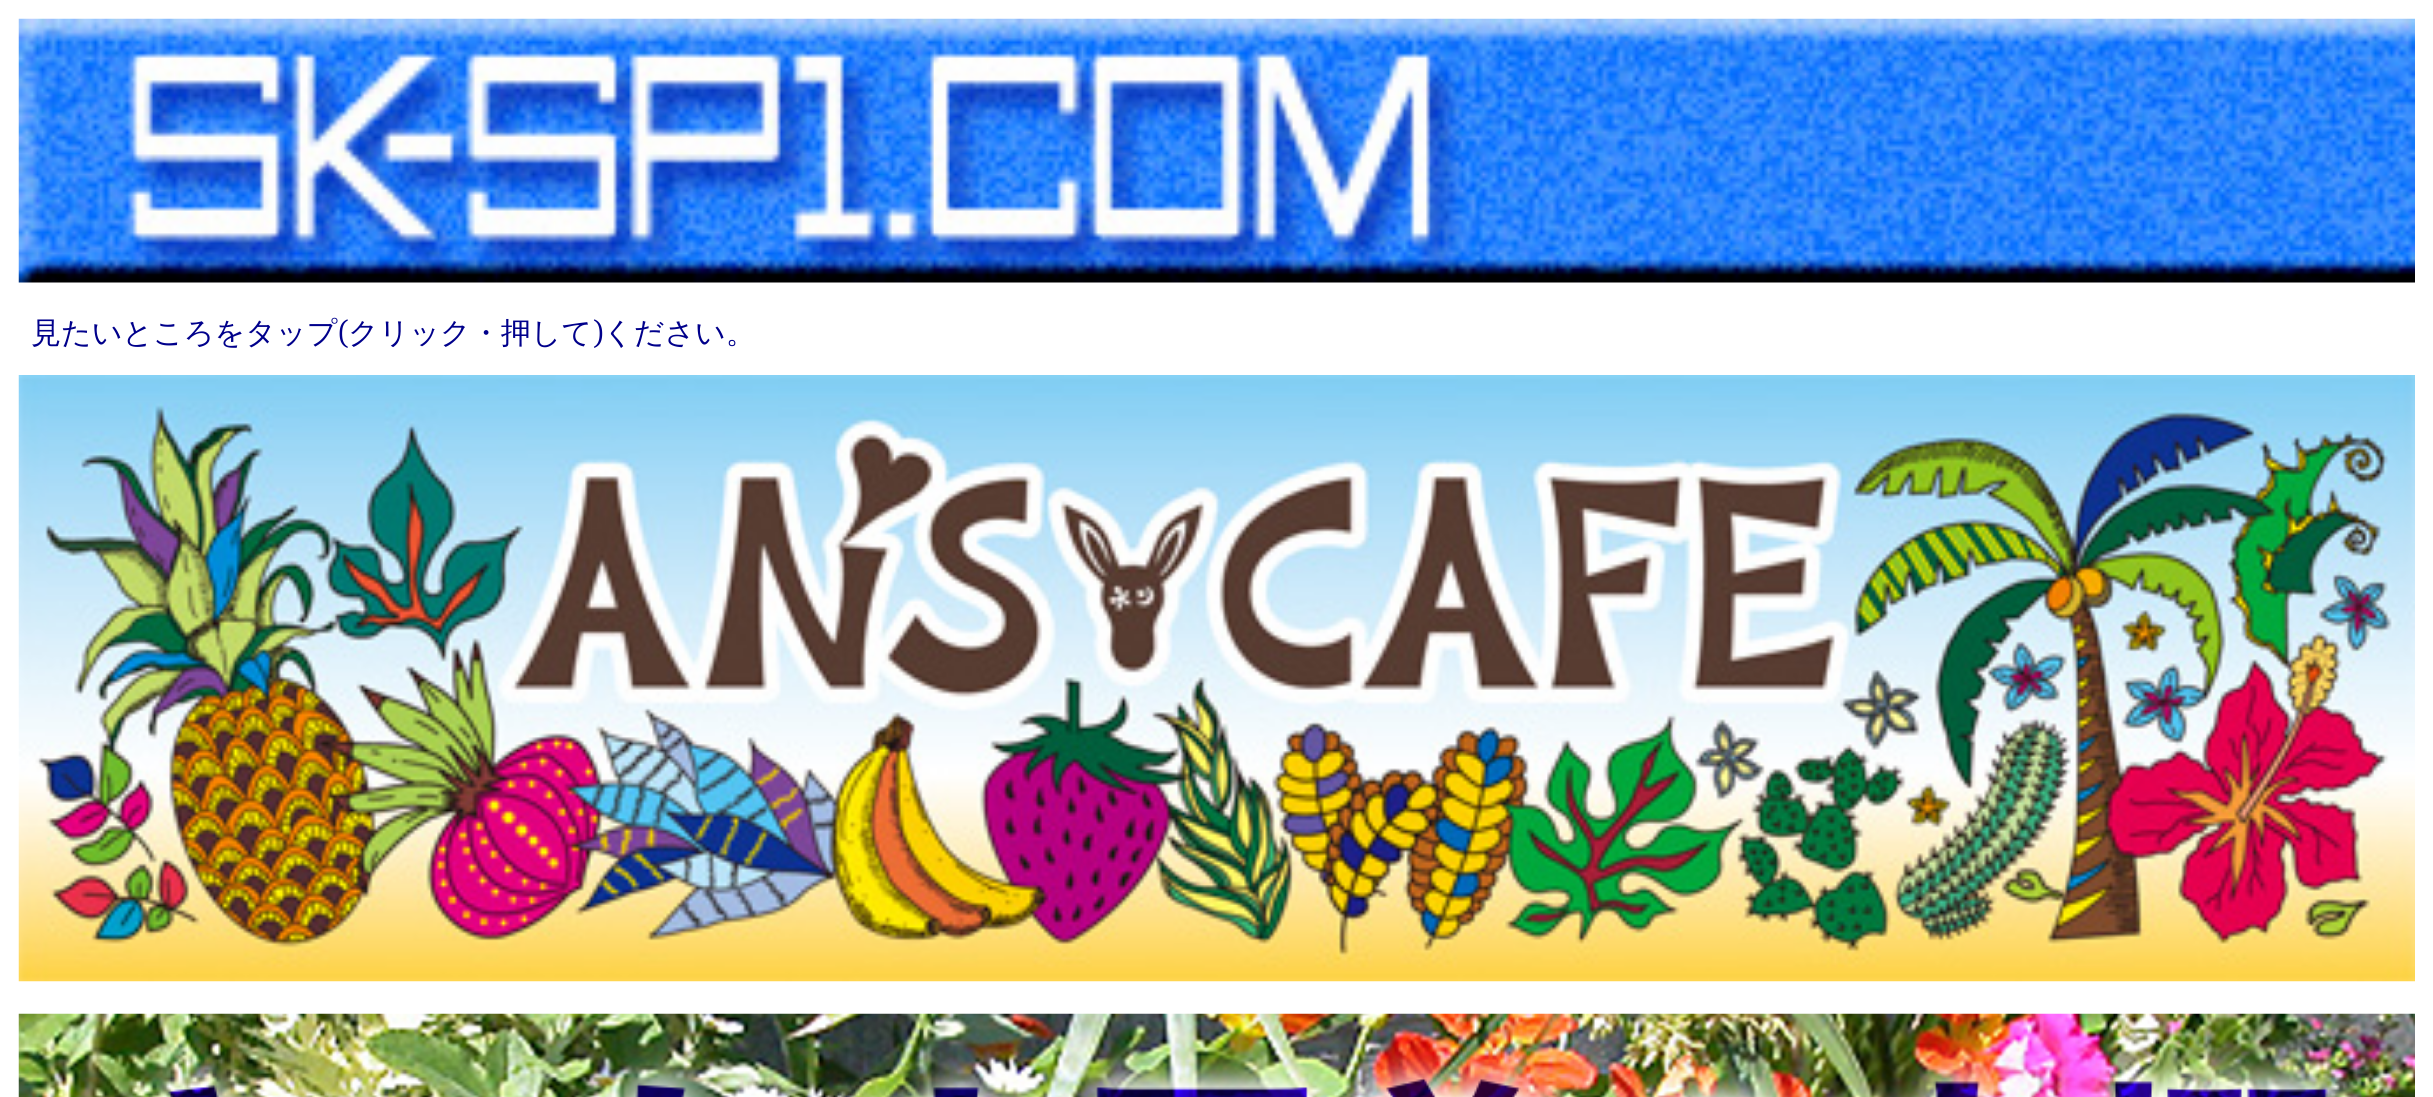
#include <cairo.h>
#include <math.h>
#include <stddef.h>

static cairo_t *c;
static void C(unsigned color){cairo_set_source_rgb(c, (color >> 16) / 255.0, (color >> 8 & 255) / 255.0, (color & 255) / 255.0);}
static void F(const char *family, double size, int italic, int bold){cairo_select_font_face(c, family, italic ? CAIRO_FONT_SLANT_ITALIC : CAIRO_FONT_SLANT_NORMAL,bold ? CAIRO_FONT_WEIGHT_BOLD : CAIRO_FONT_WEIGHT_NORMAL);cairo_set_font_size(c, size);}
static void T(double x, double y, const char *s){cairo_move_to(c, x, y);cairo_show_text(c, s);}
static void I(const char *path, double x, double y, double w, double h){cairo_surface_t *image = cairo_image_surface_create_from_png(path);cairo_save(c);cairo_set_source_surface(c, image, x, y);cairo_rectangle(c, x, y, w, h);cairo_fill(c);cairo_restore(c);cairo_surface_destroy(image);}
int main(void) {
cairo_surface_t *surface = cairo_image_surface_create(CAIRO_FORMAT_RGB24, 2433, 1097);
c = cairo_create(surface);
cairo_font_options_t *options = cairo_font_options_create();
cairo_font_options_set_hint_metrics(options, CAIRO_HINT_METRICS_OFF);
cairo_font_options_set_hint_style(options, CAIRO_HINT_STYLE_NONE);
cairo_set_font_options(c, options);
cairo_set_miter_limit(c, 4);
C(0xffffff);
cairo_paint(c);
I("1.png",18,18,2397,265);
F("WenQuanYi Zen Hei Medium",30,0,0);
C(0x00008b);
T(31,343,"見たいところをタップ");
F("Exo 2",30,0,0);
T(338,343,"(");
F("WenQuanYi Zen Hei Medium",30,0,0);
T(348,343,"クリック・押して");
F("Exo 2",30,0,0);
T(593,343,")");
F("WenQuanYi Zen Hei Medium",30,0,0);
T(603,343,"ください。");
I("2.png",18,375,2397,607);
I("3.png",18,1013,2397,84);
cairo_surface_write_to_png(surface, "o.png");
cairo_font_options_destroy(options);
cairo_destroy(c);
cairo_surface_destroy(surface);
return 0;
}
